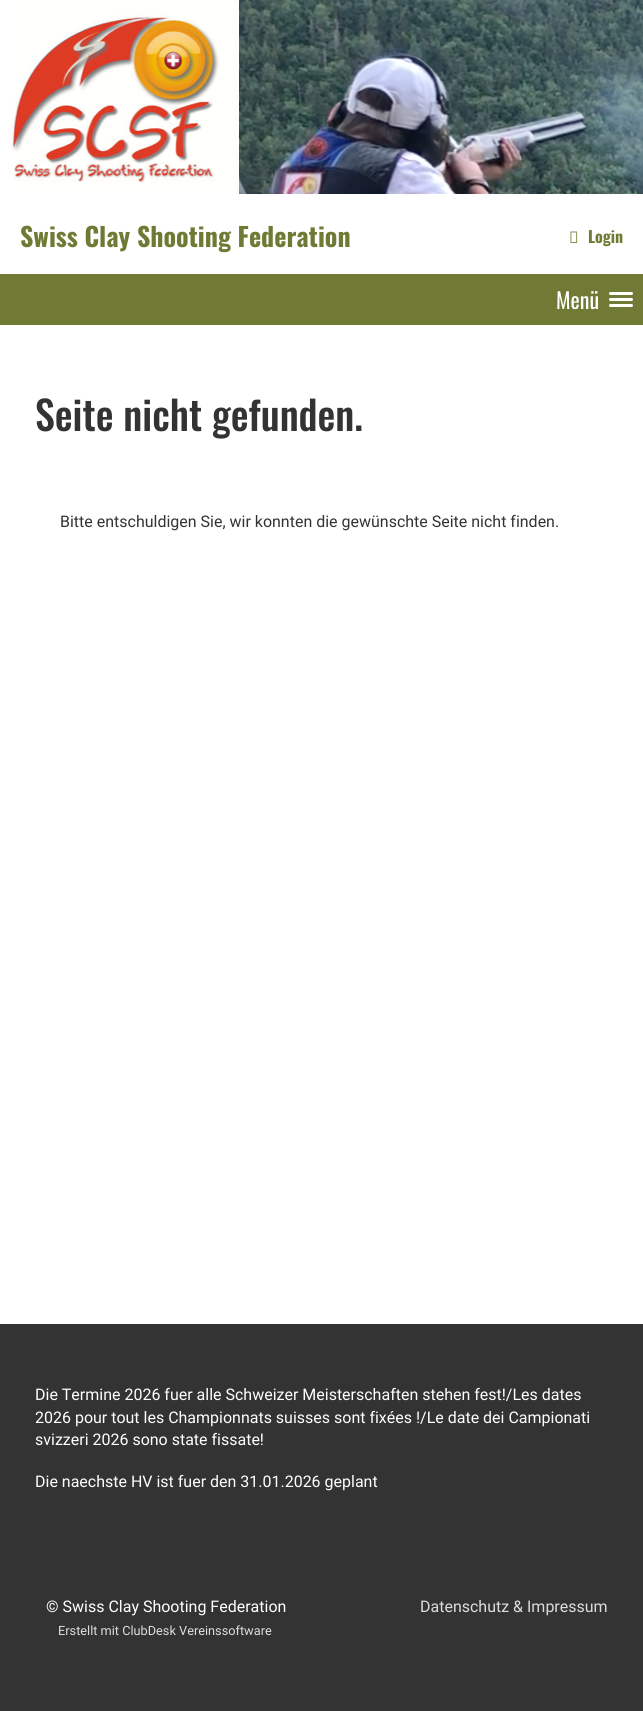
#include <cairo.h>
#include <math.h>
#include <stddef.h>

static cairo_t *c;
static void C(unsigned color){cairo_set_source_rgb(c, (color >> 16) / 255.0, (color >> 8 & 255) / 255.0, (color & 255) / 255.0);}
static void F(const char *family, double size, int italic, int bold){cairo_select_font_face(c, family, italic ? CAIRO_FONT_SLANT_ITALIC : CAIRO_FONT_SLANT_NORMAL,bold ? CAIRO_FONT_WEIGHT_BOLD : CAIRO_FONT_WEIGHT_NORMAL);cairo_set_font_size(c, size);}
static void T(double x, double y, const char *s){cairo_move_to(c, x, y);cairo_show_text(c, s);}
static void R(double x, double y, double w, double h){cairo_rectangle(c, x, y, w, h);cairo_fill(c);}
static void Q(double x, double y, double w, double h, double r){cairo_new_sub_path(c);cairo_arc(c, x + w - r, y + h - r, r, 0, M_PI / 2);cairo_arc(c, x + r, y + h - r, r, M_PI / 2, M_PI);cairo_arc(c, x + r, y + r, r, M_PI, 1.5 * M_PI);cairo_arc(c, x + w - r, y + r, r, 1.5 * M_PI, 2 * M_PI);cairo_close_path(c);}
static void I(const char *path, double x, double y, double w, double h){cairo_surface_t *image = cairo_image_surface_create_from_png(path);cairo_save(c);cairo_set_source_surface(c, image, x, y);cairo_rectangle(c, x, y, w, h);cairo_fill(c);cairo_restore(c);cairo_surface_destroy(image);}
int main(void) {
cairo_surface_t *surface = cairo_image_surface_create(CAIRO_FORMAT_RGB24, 643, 1711);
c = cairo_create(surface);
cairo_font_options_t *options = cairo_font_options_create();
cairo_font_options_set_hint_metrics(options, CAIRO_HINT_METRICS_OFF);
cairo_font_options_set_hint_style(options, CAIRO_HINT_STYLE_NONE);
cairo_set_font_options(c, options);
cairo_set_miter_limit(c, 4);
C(0xffffff);
cairo_paint(c);
I("1.png",9,0,634,194);
F("Oswald",26,0,1);
C(0x707a35);
T(20,247,"Swiss Clay Shooting Federation");
I("2.png",570,231,8,12);
F("Oswald",16,0,1);
T(588,243,"Login");
R(0,274,643,51);
F("Oswald",22,0,0);
C(0xffffff);
T(556,309,"Menü");
Q(609,292,24,3,1.5);
cairo_fill(c);
Q(609,298,24,3,1.5);
cairo_fill(c);
Q(609,304,24,3,1.5);
cairo_fill(c);
F("Oswald Medium",40,0,0);
C(0x333333);
T(35,431,"Seite nicht gefunden.");
F("Roboto",16,0,0);
T(60,527,"Bitte entschuldigen Sie, wir konnten die gewünschte Seite nicht finden.");
R(0,1324,643,387);
C(0xffffff);
T(35,1400,"Die Termine 2026 fuer alle Schweizer Meisterschaften stehen fest!/Les dates");
T(35,1423,"2026 pour tout les Championnats suisses sont fixées !/Le date dei Campionati");
T(35,1445,"svizzeri 2026 sono state fissate!");
T(35,1487,"Die naechste HV ist fuer den 31.01.2026 geplant");
T(46,1612,"© Swiss Clay Shooting Federation");
F("Roboto",12.75,0,0);
C(0xdddddd);
T(58,1635,"Erstellt mit ClubDesk Vereinssoftware");
F("Roboto",16,0,0);
T(420,1612,"Datenschutz & Impressum");
cairo_surface_write_to_png(surface, "o.png");
cairo_font_options_destroy(options);
cairo_destroy(c);
cairo_surface_destroy(surface);
return 0;
}
